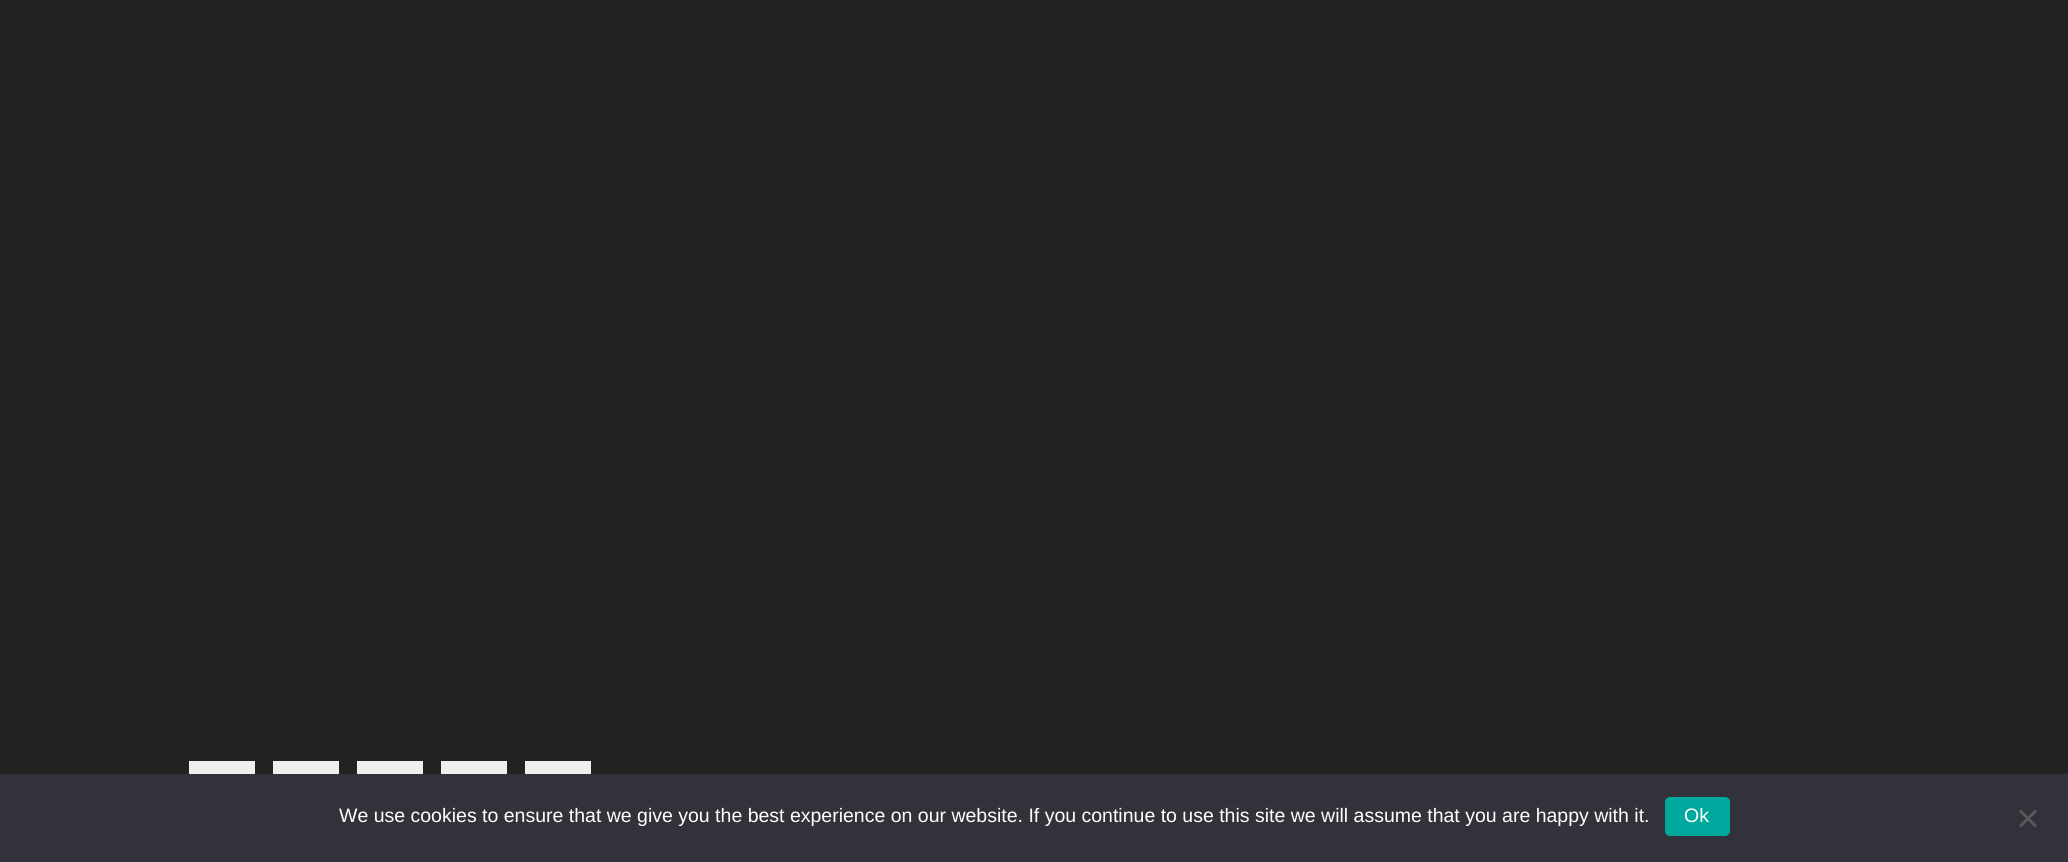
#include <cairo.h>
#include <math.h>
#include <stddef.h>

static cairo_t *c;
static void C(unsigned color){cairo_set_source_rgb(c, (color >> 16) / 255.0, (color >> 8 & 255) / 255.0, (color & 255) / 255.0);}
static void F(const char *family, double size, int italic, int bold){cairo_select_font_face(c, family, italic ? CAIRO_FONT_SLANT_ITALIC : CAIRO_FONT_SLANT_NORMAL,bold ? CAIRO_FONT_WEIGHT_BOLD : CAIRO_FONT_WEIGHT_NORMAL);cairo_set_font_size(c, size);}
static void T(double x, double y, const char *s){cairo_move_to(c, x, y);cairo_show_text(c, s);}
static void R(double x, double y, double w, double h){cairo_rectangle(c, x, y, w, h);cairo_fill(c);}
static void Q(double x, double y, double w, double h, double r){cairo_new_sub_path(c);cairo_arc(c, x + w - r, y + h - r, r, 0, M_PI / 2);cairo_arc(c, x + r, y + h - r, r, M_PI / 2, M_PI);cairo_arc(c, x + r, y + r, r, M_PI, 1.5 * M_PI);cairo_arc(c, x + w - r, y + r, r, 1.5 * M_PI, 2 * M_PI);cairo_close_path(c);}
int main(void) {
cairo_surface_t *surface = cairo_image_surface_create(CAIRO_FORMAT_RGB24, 2068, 862);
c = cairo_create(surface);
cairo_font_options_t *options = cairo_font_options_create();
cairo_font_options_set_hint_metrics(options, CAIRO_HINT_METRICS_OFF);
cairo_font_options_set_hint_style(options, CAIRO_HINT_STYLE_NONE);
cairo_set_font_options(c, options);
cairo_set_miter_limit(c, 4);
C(0x222222);
cairo_paint(c);
C(0xeeeeee);
R(189,761,66,13);
R(273,761,66,13);
R(357,761,66,13);
R(441,761,66,13);
R(525,761,66,13);
C(0x32323a);
R(0,774,2068,88);
F("Liberation Sans",19.5,0,0);
C(0xffffff);
T(339,822,"We use cookies to ensure that we give you the best experience on our website. If you continue to use this site we will assume that you are happy with it.");
C(0x00a99d);
Q(1665,797,65,39,5);
cairo_fill(c);
C(0xffffff);
T(1684,822,"Ok");
C(0x59595d);
cairo_new_path(c);
cairo_move_to(c,2035,809.5);
cairo_line_to(c,2037,811.5);
cairo_line_to(c,2021,827.5);
cairo_line_to(c,2019,825.5);
cairo_close_path(c);
cairo_fill(c);
cairo_new_path(c);
cairo_move_to(c,2019,811.5);
cairo_line_to(c,2021,809.5);
cairo_line_to(c,2037,825.5);
cairo_line_to(c,2035,827.5);
cairo_close_path(c);
cairo_fill(c);
cairo_surface_write_to_png(surface, "o.png");
cairo_font_options_destroy(options);
cairo_destroy(c);
cairo_surface_destroy(surface);
return 0;
}
